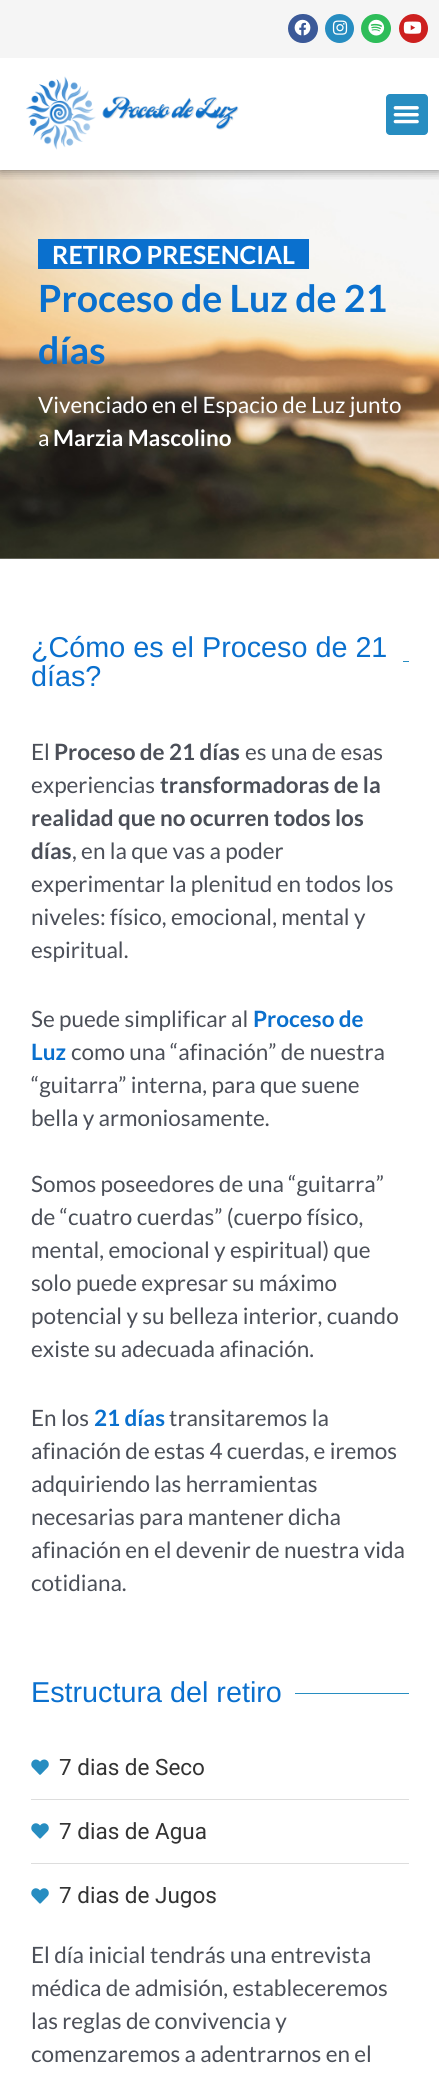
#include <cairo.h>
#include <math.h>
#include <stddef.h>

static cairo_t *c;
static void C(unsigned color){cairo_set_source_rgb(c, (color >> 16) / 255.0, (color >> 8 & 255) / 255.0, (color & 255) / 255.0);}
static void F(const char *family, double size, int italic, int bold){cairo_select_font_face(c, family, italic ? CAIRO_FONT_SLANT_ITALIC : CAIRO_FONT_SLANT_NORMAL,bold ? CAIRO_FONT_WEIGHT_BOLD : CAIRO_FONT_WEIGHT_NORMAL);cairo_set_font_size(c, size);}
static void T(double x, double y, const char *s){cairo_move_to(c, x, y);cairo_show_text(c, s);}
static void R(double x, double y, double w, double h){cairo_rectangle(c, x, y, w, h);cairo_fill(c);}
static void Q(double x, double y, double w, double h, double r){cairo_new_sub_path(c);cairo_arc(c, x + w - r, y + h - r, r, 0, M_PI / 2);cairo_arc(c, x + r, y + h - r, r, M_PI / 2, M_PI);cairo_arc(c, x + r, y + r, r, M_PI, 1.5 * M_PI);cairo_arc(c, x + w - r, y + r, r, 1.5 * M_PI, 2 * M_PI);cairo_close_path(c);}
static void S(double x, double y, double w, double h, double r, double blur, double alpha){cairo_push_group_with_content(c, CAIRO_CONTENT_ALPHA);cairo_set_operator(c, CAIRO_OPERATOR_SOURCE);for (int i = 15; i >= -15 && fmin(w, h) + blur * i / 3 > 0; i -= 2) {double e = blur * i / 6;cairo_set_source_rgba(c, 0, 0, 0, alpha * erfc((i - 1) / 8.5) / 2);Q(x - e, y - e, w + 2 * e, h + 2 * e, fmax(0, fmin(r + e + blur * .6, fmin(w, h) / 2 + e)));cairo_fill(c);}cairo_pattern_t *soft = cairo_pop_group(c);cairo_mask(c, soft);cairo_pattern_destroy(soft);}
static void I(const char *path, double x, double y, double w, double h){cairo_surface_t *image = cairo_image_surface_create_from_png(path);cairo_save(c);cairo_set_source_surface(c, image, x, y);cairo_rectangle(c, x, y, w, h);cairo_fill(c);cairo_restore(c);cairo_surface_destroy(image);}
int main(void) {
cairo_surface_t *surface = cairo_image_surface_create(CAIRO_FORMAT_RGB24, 439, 2074);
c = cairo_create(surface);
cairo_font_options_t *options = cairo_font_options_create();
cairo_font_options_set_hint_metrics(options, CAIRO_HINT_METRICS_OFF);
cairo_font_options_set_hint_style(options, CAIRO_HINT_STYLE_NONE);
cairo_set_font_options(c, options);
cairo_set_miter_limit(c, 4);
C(0xffffff);
cairo_paint(c);
I("7.png",0,170,439,389);
cairo_save(c);
cairo_rectangle(c,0,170,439,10);
cairo_clip(c);
C(0x000000);
S(0,0,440,170,0,6,.5);
cairo_restore(c);
C(0xf5f5f5);
R(0,0,439,58);
C(0x3b5998);
Q(288,14,30,29,14.5);
cairo_fill(c);
I("1.png",294,19,17,17);
C(0x278dc1);
cairo_arc(c,339.5,28.5,14.5,0,2 * M_PI);
cairo_fill(c);
I("2.png",332,20,16,15);
C(0x2ebd59);
Q(361,14,30,29,14.5);
cairo_fill(c);
I("3.png",368,19,17,17);
C(0xcd201f);
cairo_arc(c,413.5,28.5,14.5,0,2 * M_PI);
cairo_fill(c);
I("4.png",403,21,19,13);
I("5.png",26,76,213,74);
C(0x278dc1);
Q(386,94,42,41,4);
cairo_fill(c);
I("6.png",393,106,26,18);
C(0x0a70ce);
R(38,239,271,30);
F("Lato",25,0,1);
C(0xffffff);
T(52,264,"RETIRO PRESENCIAL");
F("Lato",37.5,0,1);
C(0x0a70ce);
T(38,312,"Proceso de Luz de 21");
T(38,364,"días");
F("Lato",22.5,0,0);
C(0xffffff);
T(38,413,"Vivenciado en el Espacio de Luz junto");
T(38,446,"a");
F("Lato",22.5,0,1);
T(53,446,"Marzia Mascolino");
F("Liberation Sans",28.75,0,0);
C(0x0a70ce);
T(31,657,"¿Cómo es el Proceso de 21");
T(31,686,"días?");
C(0x278dc1);
R(403,661,6,1);
F("Lato",22.5,0,0);
C(0x4b4f58);
T(31,760,"El");
F("Lato",22.5,0,1);
T(54,760,"Proceso de 21 días");
F("Lato",22.5,0,0);
T(245,760,"es una de esas");
T(31,793,"experiencias");
F("Lato",22.5,0,1);
T(160,793,"transformadoras de la");
T(31,826,"realidad que no ocurren todos los");
T(31,859,"días");
F("Lato",22.5,0,0);
T(72,859,", en la que vas a poder");
T(31,892,"experimentar la plenitud en todos los");
T(31,925,"niveles: físico, emocional, mental y");
T(31,958,"espiritual.");
T(31,1027,"Se puede simplificar al");
F("Lato",22.5,0,1);
C(0x0a70ce);
T(253,1027,"Proceso de");
T(31,1060,"Luz");
F("Lato",22.5,0,0);
C(0x4b4f58);
T(71,1060,"como una “afinación” de nuestra");
T(31,1093,"“guitarra” interna, para que suene");
T(31,1126,"bella y armoniosamente.");
T(31,1192,"Somos poseedores de una “guitarra”");
T(31,1225,"de “cuatro cuerdas” (cuerpo físico,");
T(31,1258,"mental, emocional y espiritual) que");
T(31,1291,"solo puede expresar su máximo");
T(31,1324,"potencial y su belleza interior, cuando");
T(31,1357,"existe su adecuada afinación.");
T(31,1426,"En los");
F("Lato",22.5,0,1);
C(0x0a70ce);
T(94,1426,"21 días");
F("Lato",22.5,0,0);
C(0x4b4f58);
T(169,1426,"transitaremos la");
T(31,1459,"afinación de estas 4 cuerdas, e iremos");
T(31,1492,"adquiriendo las herramientas");
T(31,1525,"necesarias para mantener dicha");
T(31,1558,"afinación en el devenir de nuestra vida");
T(31,1591,"cotidiana.");
F("Liberation Sans",28.75,0,0);
C(0x0a70ce);
T(31,1702,"Estructura del retiro");
C(0x278dc1);
R(295,1693,114,1);
I("8.png",31,1759,18,16);
F("Roboto",22.5,0,0);
C(0x333333);
T(59,1775,"7 dias de Seco");
C(0xdddddd);
R(31,1799,378,1);
I("9.png",31,1823,18,16);
C(0x333333);
T(59,1839,"7 dias de Agua");
C(0xdddddd);
R(31,1863,378,1);
I("9.png",31,1888,18,16);
C(0x333333);
T(59,1903,"7 dias de Jugos");
F("Lato",22.5,0,0);
C(0x4b4f58);
T(31,1963,"El día inicial tendrás una entrevista");
T(31,1996,"médica de admisión, estableceremos");
T(31,2029,"las reglas de convivencia y");
T(31,2062,"comenzaremos a adentrarnos en el");
cairo_surface_write_to_png(surface, "o.png");
cairo_font_options_destroy(options);
cairo_destroy(c);
cairo_surface_destroy(surface);
return 0;
}
